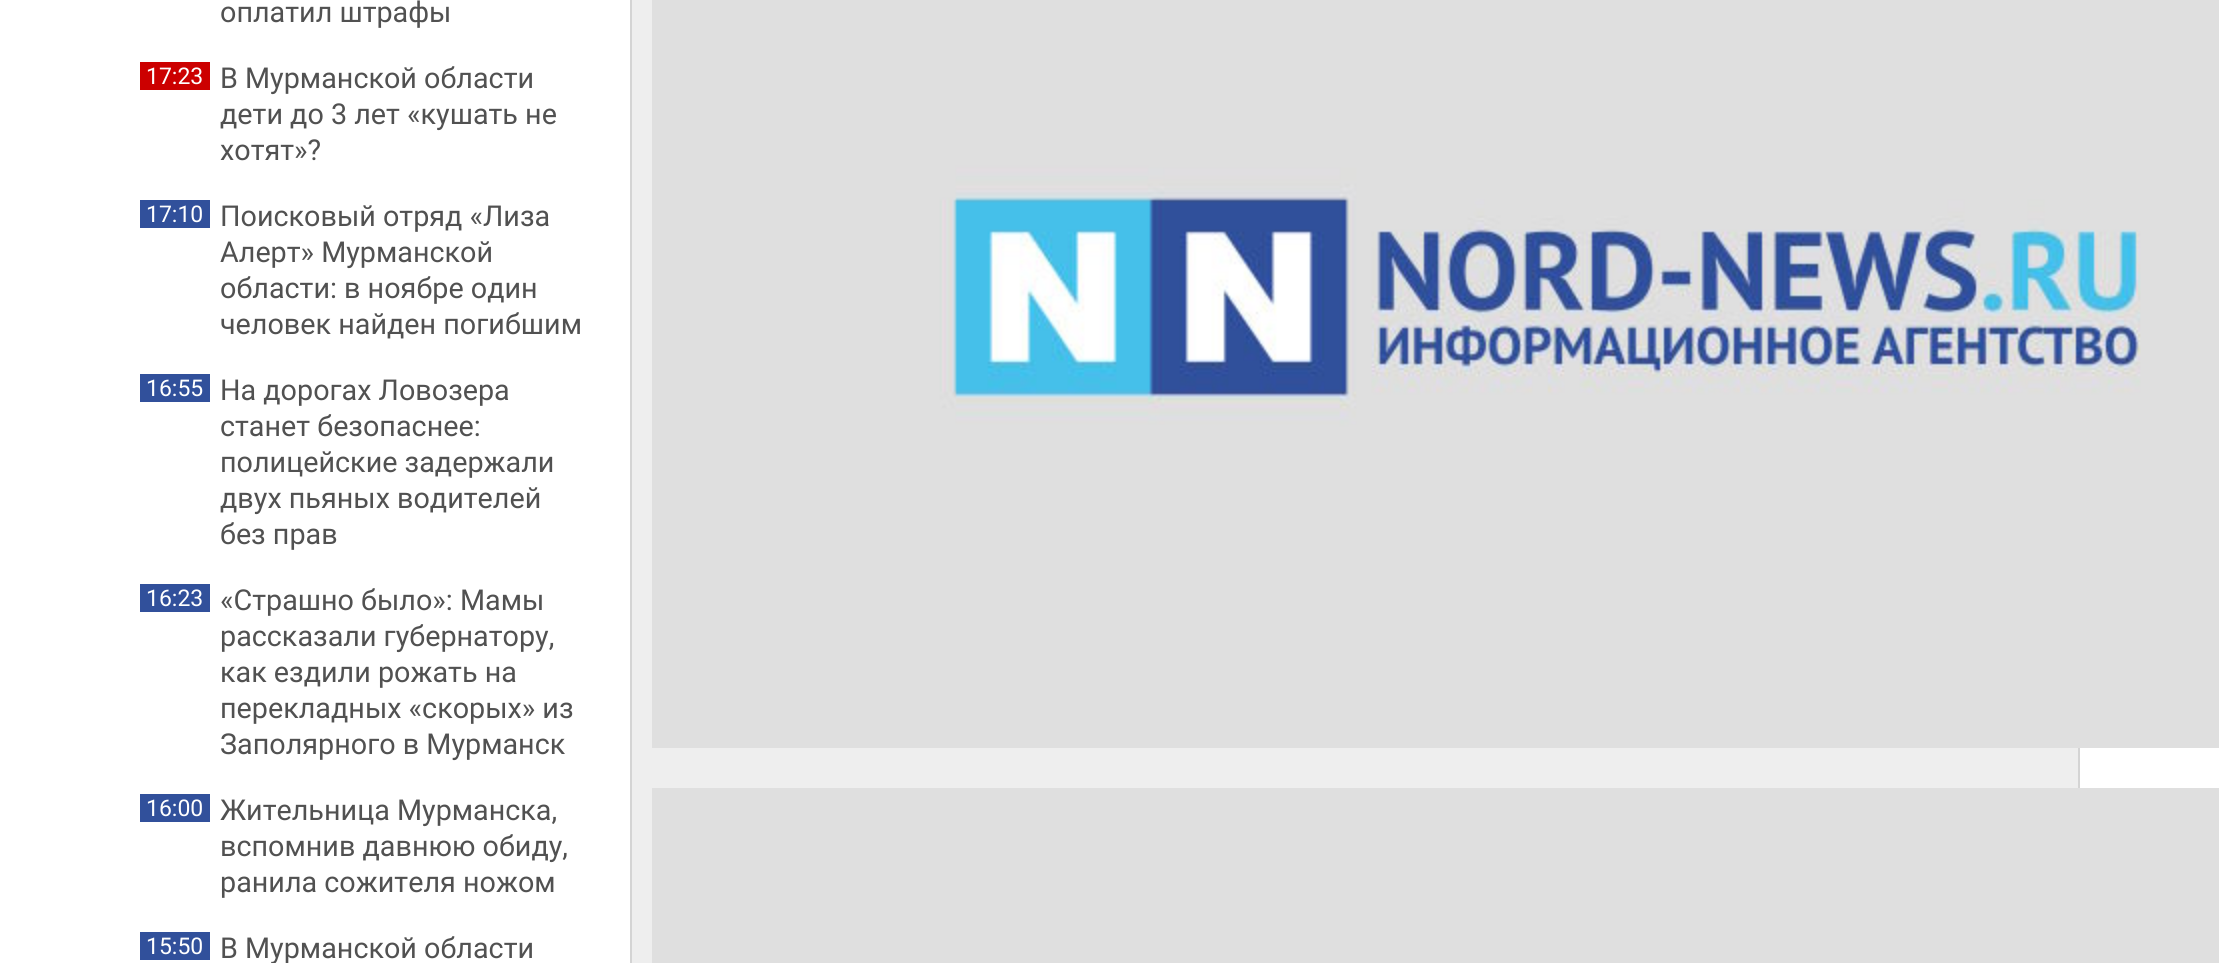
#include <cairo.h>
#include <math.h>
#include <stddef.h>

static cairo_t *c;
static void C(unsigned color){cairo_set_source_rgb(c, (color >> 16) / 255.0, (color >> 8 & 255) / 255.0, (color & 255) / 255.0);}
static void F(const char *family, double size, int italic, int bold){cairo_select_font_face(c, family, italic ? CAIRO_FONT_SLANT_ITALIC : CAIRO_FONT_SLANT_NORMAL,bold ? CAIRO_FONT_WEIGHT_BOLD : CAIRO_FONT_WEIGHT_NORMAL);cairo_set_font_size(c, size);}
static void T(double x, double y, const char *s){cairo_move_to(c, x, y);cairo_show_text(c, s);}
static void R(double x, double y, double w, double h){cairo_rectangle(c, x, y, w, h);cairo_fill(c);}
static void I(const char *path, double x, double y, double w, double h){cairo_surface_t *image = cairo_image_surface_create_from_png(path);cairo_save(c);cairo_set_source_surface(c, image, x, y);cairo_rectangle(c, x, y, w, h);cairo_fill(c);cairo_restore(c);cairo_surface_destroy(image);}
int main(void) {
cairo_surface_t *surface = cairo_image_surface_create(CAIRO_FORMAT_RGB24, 2219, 963);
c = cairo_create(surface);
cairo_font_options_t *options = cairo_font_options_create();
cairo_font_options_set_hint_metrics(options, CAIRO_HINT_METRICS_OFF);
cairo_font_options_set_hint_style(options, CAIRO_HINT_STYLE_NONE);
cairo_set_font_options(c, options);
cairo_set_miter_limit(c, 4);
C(0xffffff);
cairo_paint(c);
F("Roboto",28.75,0,0);
C(0x515151);
T(220,22,"оплатил штрафы");
C(0xcc0000);
R(140,62,70,28);
F("Roboto",23,0,0);
C(0xffffff);
T(146,84,"17:23");
F("Roboto",28.75,0,0);
C(0x515151);
T(220,88,"В Мурманской области");
T(220,124,"дети до 3 лет «кушать не");
T(220,160,"хотят»?");
C(0x31509b);
R(140,200,70,28);
F("Roboto",23,0,0);
C(0xffffff);
T(146,222,"17:10");
F("Roboto",28.75,0,0);
C(0x515151);
T(220,226,"Поисковый отряд «Лиза");
T(220,262,"Алерт» Мурманской");
T(220,298,"области: в ноябре один");
T(220,334,"человек найден погибшим");
C(0x31509b);
R(140,374,70,28);
F("Roboto",23,0,0);
C(0xffffff);
T(146,396,"16:55");
F("Roboto",28.75,0,0);
C(0x515151);
T(220,400,"На дорогах Ловозера");
T(220,436,"станет безопаснее:");
T(220,472,"полицейские задержали");
T(220,508,"двух пьяных водителей");
T(220,544,"без прав");
C(0x31509b);
R(140,584,70,28);
F("Roboto",23,0,0);
C(0xffffff);
T(146,606,"16:23");
F("Roboto",28.75,0,0);
C(0x515151);
T(220,610,"«Страшно было»: Мамы");
T(220,646,"рассказали губернатору,");
T(220,682,"как ездили рожать на");
T(220,718,"перекладных «скорых» из");
T(220,754,"Заполярного в Мурманск");
C(0x31509b);
R(140,794,70,28);
F("Roboto",23,0,0);
C(0xffffff);
T(146,816,"16:00");
F("Roboto",28.75,0,0);
C(0x515151);
T(220,820,"Жительница Мурманска,");
T(220,856,"вспомнив давнюю обиду,");
T(220,892,"ранила сожителя ножом");
C(0x31509b);
R(140,932,70,28);
F("Roboto",23,0,0);
C(0xffffff);
T(146,954,"15:50");
F("Roboto",28.75,0,0);
C(0x515151);
T(220,958,"В Мурманской области");
cairo_rectangle(c,631,-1,1448,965);
C(0xd4d4d4);
cairo_stroke(c);
C(0xeeeeee);
R(632,0,1446,963);
I("1.png",652,0,1567,748);
C(0xdfdfdf);
R(652,788,1567,175);
cairo_surface_write_to_png(surface, "o.png");
cairo_font_options_destroy(options);
cairo_destroy(c);
cairo_surface_destroy(surface);
return 0;
}
